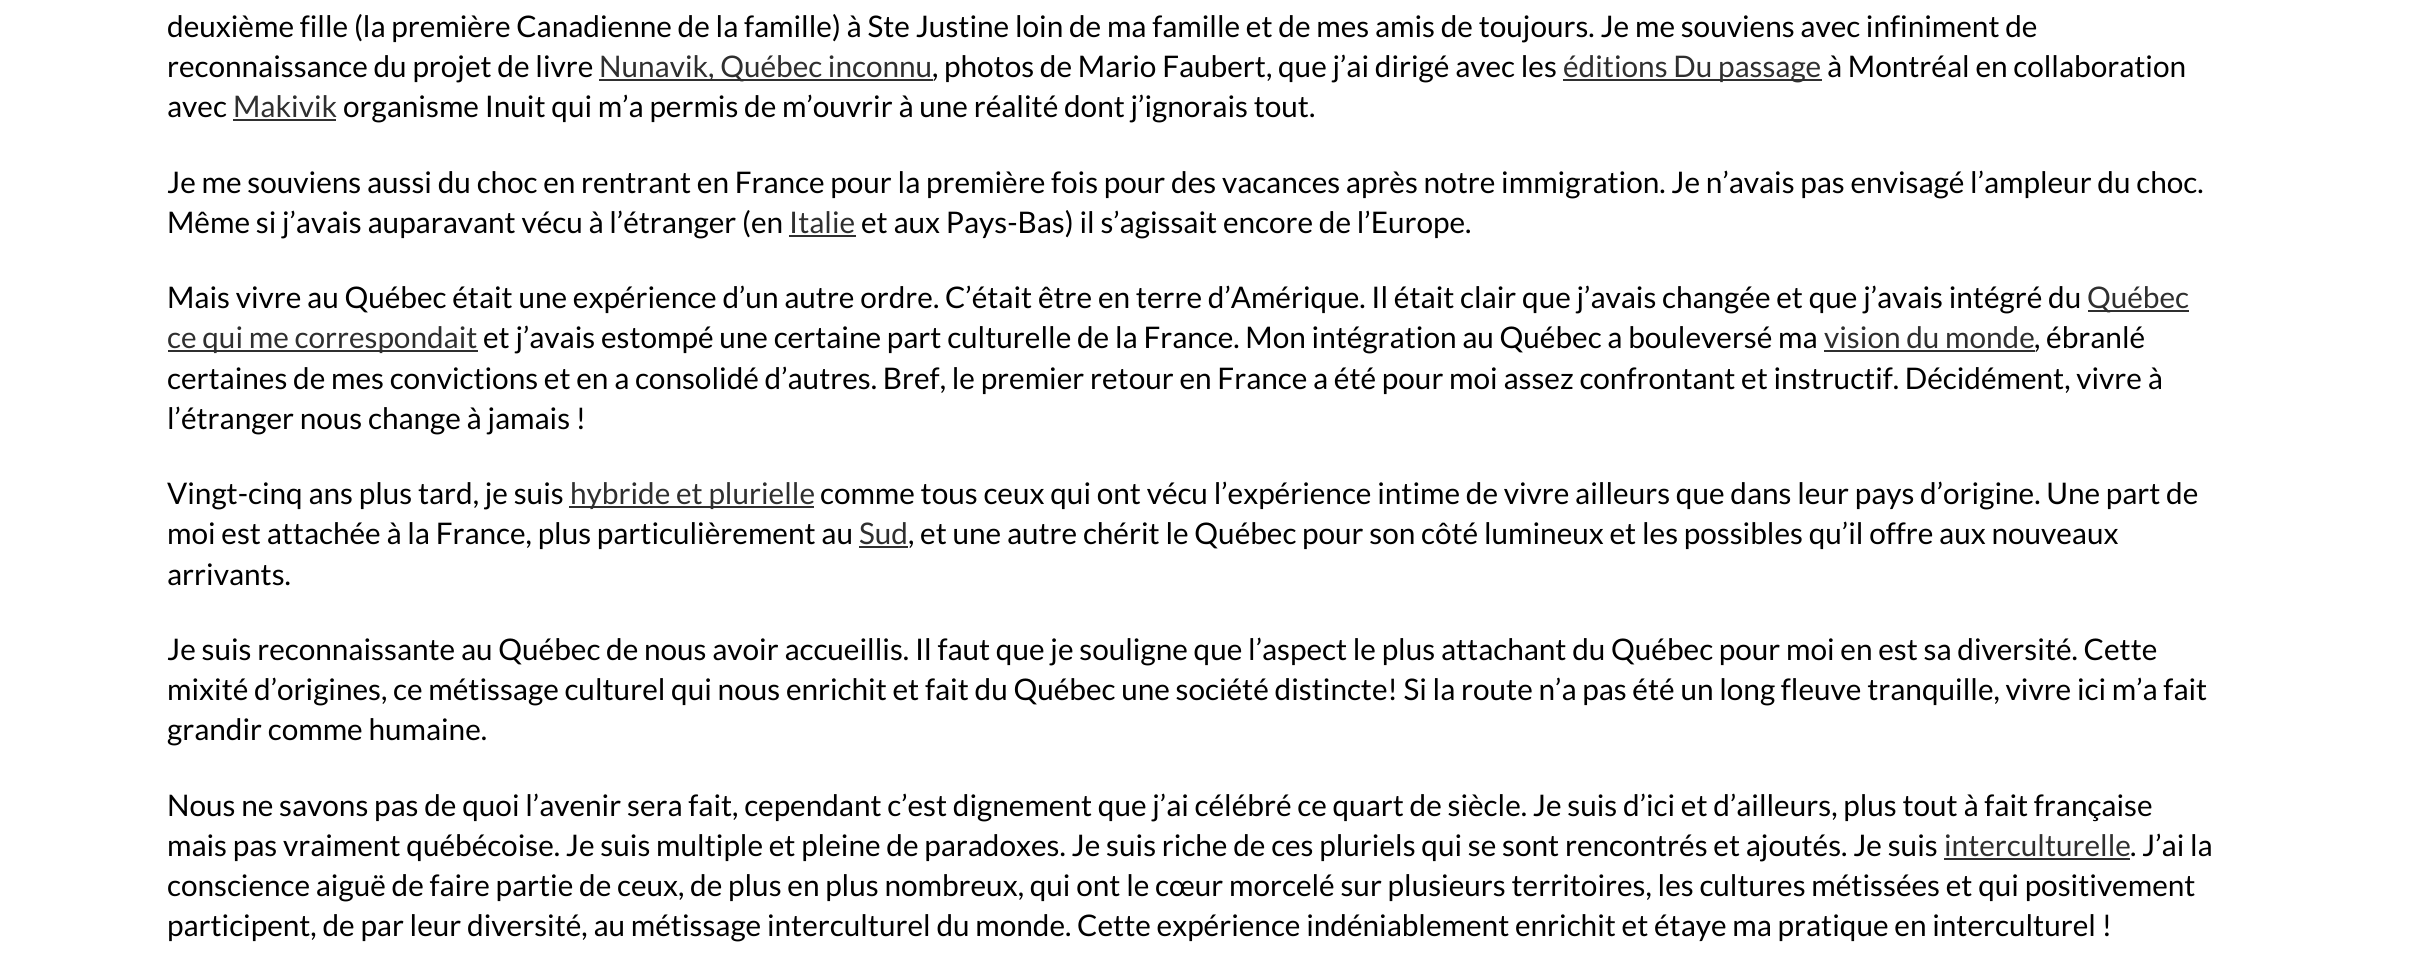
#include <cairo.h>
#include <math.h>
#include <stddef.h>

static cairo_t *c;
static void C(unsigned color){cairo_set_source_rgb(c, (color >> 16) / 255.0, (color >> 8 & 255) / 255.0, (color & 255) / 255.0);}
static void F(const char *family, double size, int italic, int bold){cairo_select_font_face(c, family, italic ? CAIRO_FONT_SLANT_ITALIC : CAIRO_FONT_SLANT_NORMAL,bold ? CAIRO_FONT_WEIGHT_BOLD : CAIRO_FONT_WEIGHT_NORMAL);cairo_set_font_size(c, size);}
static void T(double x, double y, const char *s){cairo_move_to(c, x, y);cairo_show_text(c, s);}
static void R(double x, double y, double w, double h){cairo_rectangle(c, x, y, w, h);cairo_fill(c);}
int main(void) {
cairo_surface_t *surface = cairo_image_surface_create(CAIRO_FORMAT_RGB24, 2433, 963);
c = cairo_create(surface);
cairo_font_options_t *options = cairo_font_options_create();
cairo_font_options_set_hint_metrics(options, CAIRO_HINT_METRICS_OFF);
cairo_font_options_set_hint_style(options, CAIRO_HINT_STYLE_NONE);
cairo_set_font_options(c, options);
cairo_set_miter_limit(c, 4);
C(0xffffff);
cairo_paint(c);
F("Lato",29.75,0,0);
C(0x000000);
T(167,37,"deuxième fille (la première Canadienne de la famille) à Ste Justine loin de ma famille et de mes amis de toujours. Je me souviens avec infiniment de");
T(167,77,"reconnaissance du projet de livre");
C(0x2f2f2f);
R(599,79,334,2);
T(599,77,"Nunavik, Québec inconnu");
C(0x000000);
T(932,77,", photos de Mario Faubert, que j’ai dirigé avec les");
C(0x2f2f2f);
R(1563,79,259,2);
T(1563,77,"éditions Du passage");
C(0x000000);
T(1827,77,"à Montréal en collaboration");
T(167,117,"avec");
C(0x2f2f2f);
T(233,117,"Makivik");
R(233,119,103,2);
C(0x000000);
T(343,117,"organisme Inuit qui m’a permis de m’ouvrir à une réalité dont j’ignorais tout.");
T(167,193,"Je me souviens aussi du choc en rentrant en France pour la première fois pour des vacances après notre immigration. Je n’avais pas envisagé l’ampleur du choc.");
T(167,233,"Même si j’avais auparavant vécu à l’étranger (en");
C(0x2f2f2f);
T(789,233,"Italie");
R(789,235,67,2);
C(0x000000);
T(861,233,"et aux Pays-Bas) il s’agissait encore de l’Europe.");
T(167,308,"Mais vivre au Québec était une expérience d’un autre ordre. C’était être en terre d’Amérique. Il était clair que j’avais changée et que j’avais intégré du");
C(0x2f2f2f);
R(2088,310,101,2);
T(2087,308,"Québec");
R(168,350,310,2);
T(167,348,"ce qui me correspondait");
C(0x000000);
T(483,348,"et j’avais estompé une certaine part culturelle de la France. Mon intégration au Québec a bouleversé ma");
C(0x2f2f2f);
T(1824,348,"vision du monde");
R(1824,350,211,2);
C(0x000000);
T(2034,348,", ébranlé");
T(167,389,"certaines de mes convictions et en a consolidé d’autres. Bref, le premier retour en France a été pour moi assez confrontant et instructif. Décidément, vivre à");
T(167,429,"l’étranger nous change à jamais !");
T(167,504,"Vingt-cinq ans plus tard, je suis");
C(0x2f2f2f);
R(569,506,245,2);
T(570,504,"hybride et plurielle");
C(0x000000);
T(820,504,"comme tous ceux qui ont vécu l’expérience intime de vivre ailleurs que dans leur pays d’origine. Une part de");
T(167,544,"moi est attachée à la France, plus particulièrement au");
C(0x2f2f2f);
T(859,544,"Sud");
R(859,546,49,2);
C(0x000000);
T(908,544,", et une autre chérit le Québec pour son côté lumineux et les possibles qu’il offre aux nouveaux");
T(167,585,"arrivants.");
T(167,660,"Je suis reconnaissante au Québec de nous avoir accueillis. Il faut que je souligne que l’aspect le plus attachant du Québec pour moi en est sa diversité. Cette");
T(167,700,"mixité d’origines, ce métissage culturel qui nous enrichit et fait du Québec une société distincte! Si la route n’a pas été un long fleuve tranquille, vivre ici m’a fait");
T(167,740,"grandir comme humaine.");
T(167,816,"Nous ne savons pas de quoi l’avenir sera fait, cependant c’est dignement que j’ai célébré ce quart de siècle. Je suis d’ici et d’ailleurs, plus tout à fait française");
T(167,856,"mais pas vraiment québécoise. Je suis multiple et pleine de paradoxes. Je suis riche de ces pluriels qui se sont rencontrés et ajoutés. Je suis");
C(0x2f2f2f);
T(1944,856,"interculturelle");
R(1944,858,186,2);
C(0x000000);
T(2130,856,". J’ai la");
T(167,896,"conscience aiguë de faire partie de ceux, de plus en plus nombreux, qui ont le cœur morcelé sur plusieurs territoires, les cultures métissées et qui positivement");
T(167,936,"participent, de par leur diversité, au métissage interculturel du monde. Cette expérience indéniablement enrichit et étaye ma pratique en interculturel !");
cairo_surface_write_to_png(surface, "o.png");
cairo_font_options_destroy(options);
cairo_destroy(c);
cairo_surface_destroy(surface);
return 0;
}
